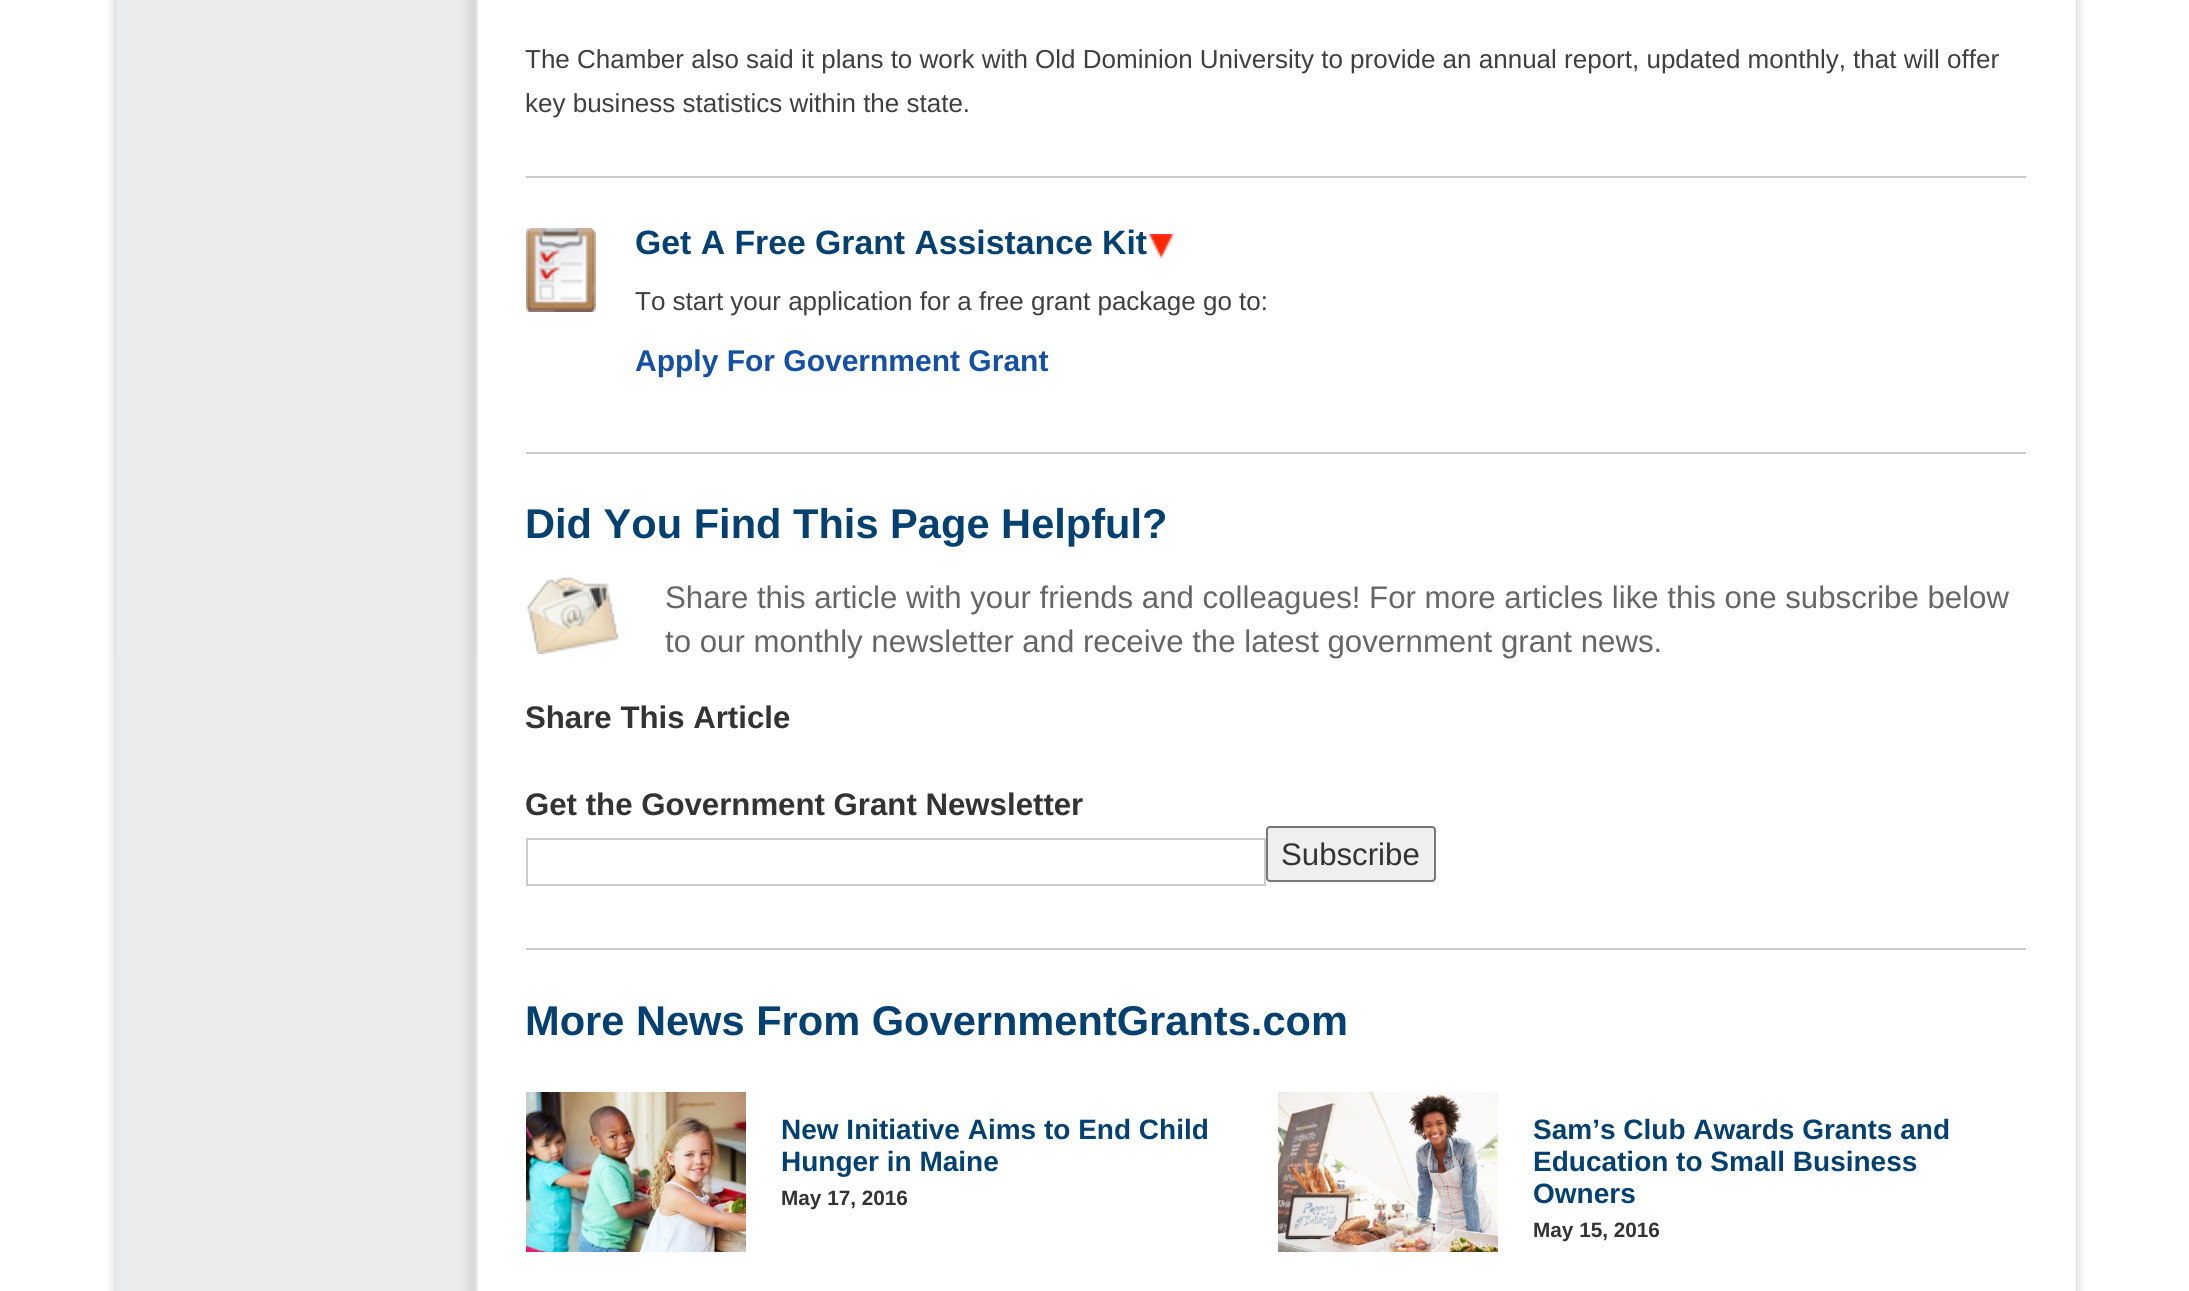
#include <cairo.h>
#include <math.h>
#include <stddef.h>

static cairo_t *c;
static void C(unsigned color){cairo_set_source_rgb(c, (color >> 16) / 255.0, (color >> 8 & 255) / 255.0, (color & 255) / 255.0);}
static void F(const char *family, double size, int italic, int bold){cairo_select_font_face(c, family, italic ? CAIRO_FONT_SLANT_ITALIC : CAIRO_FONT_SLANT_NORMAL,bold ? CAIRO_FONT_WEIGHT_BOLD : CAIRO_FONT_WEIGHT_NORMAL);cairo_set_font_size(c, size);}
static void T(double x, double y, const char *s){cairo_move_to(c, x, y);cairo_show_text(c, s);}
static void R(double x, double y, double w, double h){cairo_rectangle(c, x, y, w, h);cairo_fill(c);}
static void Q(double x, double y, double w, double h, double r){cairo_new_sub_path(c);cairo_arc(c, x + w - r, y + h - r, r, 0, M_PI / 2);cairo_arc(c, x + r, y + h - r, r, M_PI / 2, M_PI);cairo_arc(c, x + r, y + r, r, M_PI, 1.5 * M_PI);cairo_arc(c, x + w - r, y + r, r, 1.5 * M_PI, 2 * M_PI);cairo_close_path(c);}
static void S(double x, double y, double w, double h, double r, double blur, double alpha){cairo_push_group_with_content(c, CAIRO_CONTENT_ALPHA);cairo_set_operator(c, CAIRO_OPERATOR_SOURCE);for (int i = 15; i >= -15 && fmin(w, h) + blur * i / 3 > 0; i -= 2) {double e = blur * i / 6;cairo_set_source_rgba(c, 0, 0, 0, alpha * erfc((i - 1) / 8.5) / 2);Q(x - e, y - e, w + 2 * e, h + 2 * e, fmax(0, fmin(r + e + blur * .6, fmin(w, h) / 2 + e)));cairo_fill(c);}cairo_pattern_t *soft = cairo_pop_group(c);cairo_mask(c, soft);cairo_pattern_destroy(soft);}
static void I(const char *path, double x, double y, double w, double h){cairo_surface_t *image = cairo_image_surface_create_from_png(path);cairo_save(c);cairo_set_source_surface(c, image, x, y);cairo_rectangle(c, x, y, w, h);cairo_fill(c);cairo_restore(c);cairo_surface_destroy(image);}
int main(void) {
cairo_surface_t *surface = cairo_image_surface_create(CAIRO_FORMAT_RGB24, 2189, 1291);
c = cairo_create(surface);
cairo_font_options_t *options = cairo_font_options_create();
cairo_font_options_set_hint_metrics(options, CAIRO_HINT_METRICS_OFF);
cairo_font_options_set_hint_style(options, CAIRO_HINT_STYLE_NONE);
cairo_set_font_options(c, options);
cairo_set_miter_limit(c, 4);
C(0xffffff);
cairo_paint(c);
cairo_save(c);
cairo_set_fill_rule(c,CAIRO_FILL_RULE_EVEN_ODD);
cairo_new_path(c);
cairo_move_to(c,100,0);
cairo_line_to(c,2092,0);
cairo_line_to(c,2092,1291);
cairo_line_to(c,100,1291);
cairo_close_path(c);
cairo_move_to(c,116,-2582);
cairo_line_to(c,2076,-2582);
cairo_line_to(c,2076,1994);
cairo_line_to(c,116,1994);
cairo_close_path(c);
cairo_clip(c);
C(0xc2c2c2);
S(116,-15,1960,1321,0,5,1);
cairo_restore(c);
I("1.png",116,0,362,1291);
I("2.png",116,0,360,654);
F("Liberation Sans",26,0,0);
C(0x3f3f3f);
T(525,68,"The Chamber also said it plans to work with Old Dominion University to provide an annual report, updated monthly, that will offer");
T(525,112,"key business statistics within the state.");
C(0xcbcbcb);
R(526,176,1500,2);
I("3.png",526,228,70,84);
F("Liberation Sans",33.75,0,1);
C(0x044171);
T(635,254,"Get A Free Grant Assistance Kit");
I("4.png",1148,234,26,24);
F("Liberation Sans",26,0,0);
C(0x3f3f3f);
T(635,310,"To start your application for a free grant package go to:");
F("Liberation Sans",30,0,1);
C(0x1450a3);
T(635,371,"Apply For Government Grant");
C(0xcbcbcb);
R(526,452,1500,2);
F("Liberation Sans",41.6,0,1);
C(0x044171);
T(525,538,"Did You Find This Page Helpful?");
I("5.png",526,577,92,77);
F("Liberation Sans",31.2,0,0);
C(0x666666);
T(665,608,"Share this article with your friends and colleagues! For more articles like this one subscribe below");
T(665,652,"to our monthly newsletter and receive the latest government grant news.");
F("Liberation Sans",31.2,0,1);
C(0x333333);
T(525,728,"Share This Article");
T(525,815,"Get the Government Grant Newsletter");
cairo_rectangle(c,527,839,738,46);
C(0xcccccc);
cairo_stroke(c);
C(0xefefef);
Q(1267,827,168,54,3);
cairo_fill_preserve(c);
C(0x767676);
cairo_stroke(c);
F("Liberation Sans",31.2,0,0);
C(0x333333);
T(1281,865,"Subscribe");
C(0xcbcbcb);
R(526,948,1500,2);
F("Liberation Sans",41.6,0,1);
C(0x044171);
T(525,1035,"More News From GovernmentGrants.com");
I("6.png",526,1092,220,160);
F("Liberation Sans",28,0,1);
T(781,1139,"New Initiative Aims to End Child");
T(781,1171,"Hunger in Maine");
F("Liberation Sans",20.75,0,1);
C(0x333333);
T(781,1205,"May 17, 2016");
I("7.png",1278,1092,220,160);
F("Liberation Sans",28,0,1);
C(0x044171);
T(1533,1139,"Sam’s Club Awards Grants and");
T(1533,1171,"Education to Small Business");
T(1533,1203,"Owners");
F("Liberation Sans",20.75,0,1);
C(0x333333);
T(1533,1237,"May 15, 2016");
cairo_surface_write_to_png(surface, "o.png");
cairo_font_options_destroy(options);
cairo_destroy(c);
cairo_surface_destroy(surface);
return 0;
}
